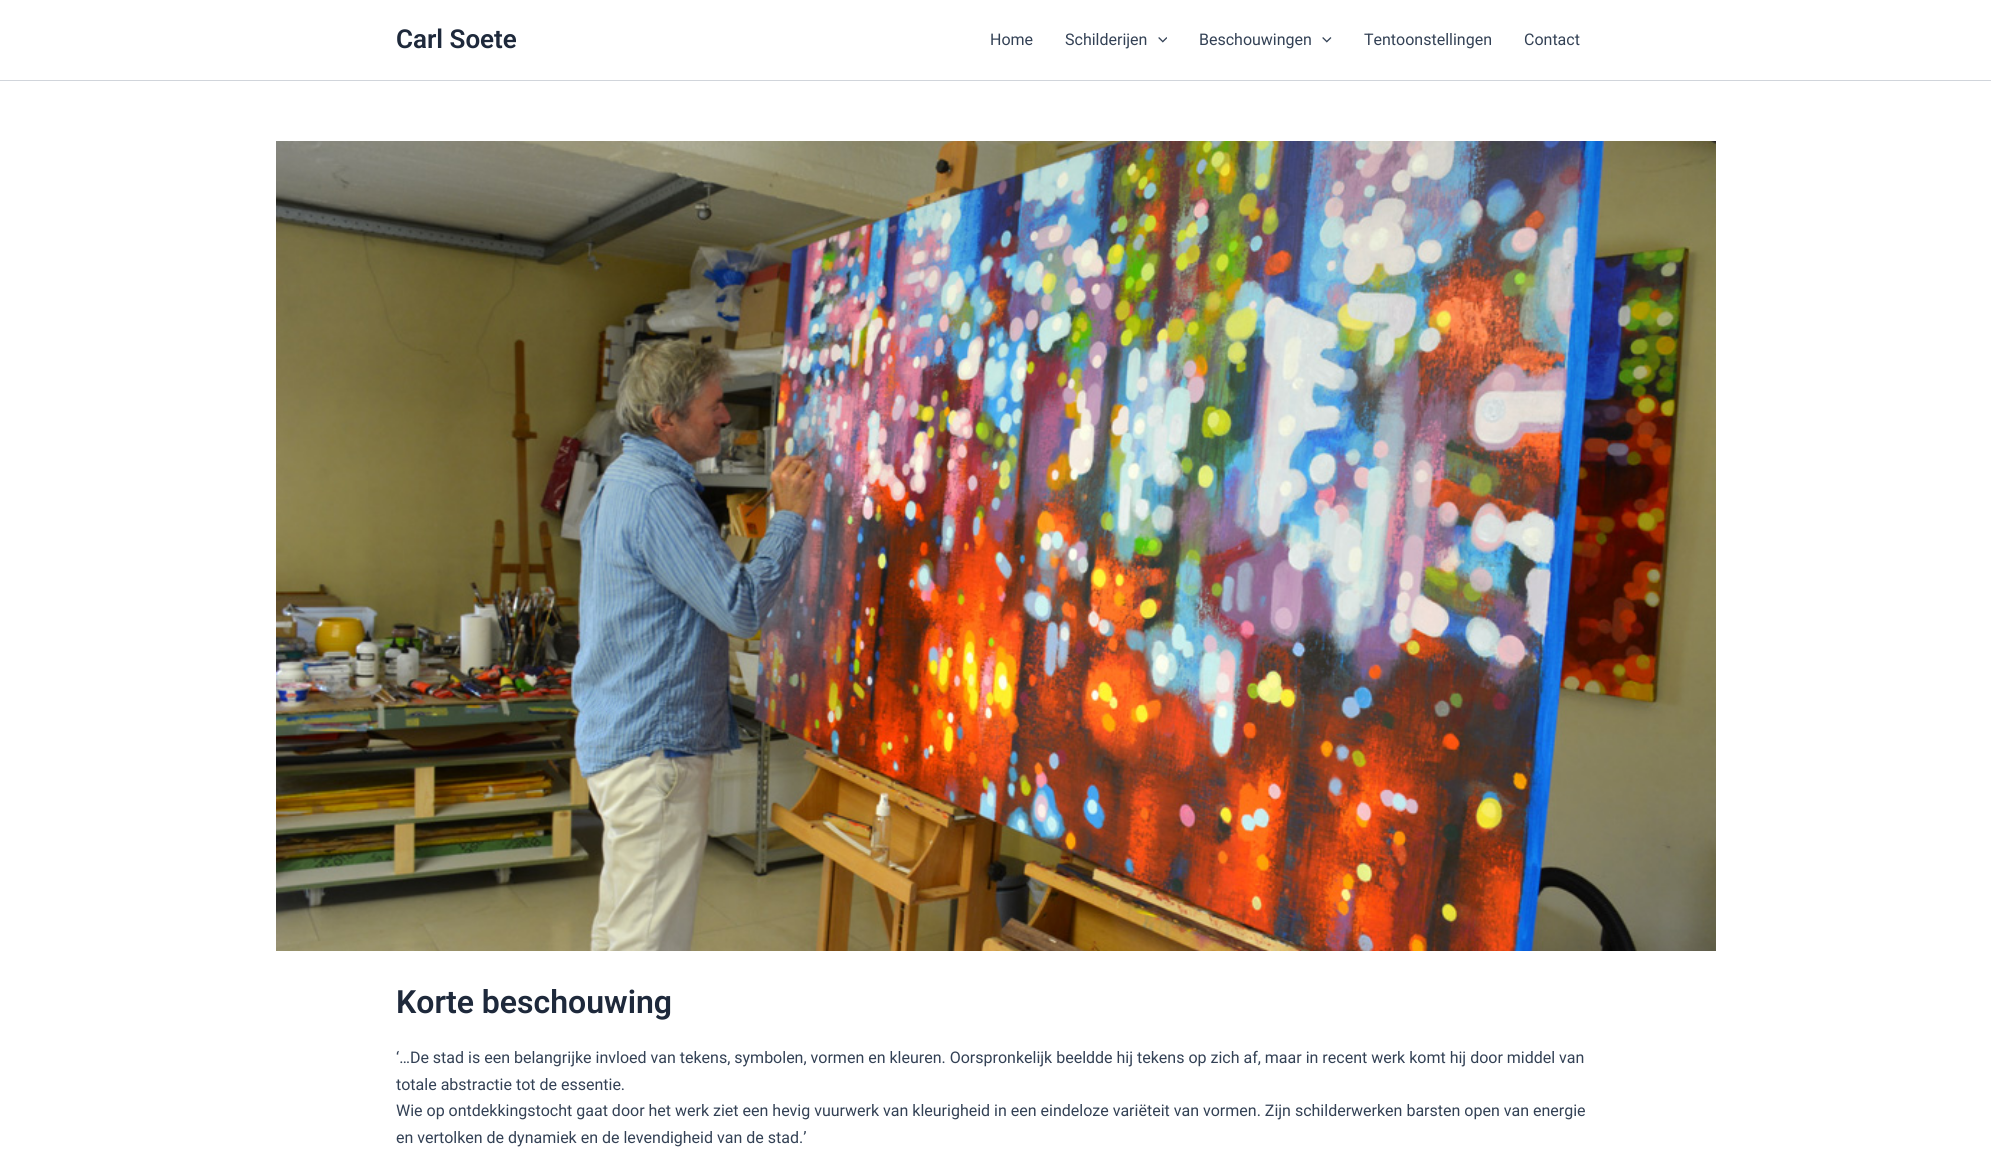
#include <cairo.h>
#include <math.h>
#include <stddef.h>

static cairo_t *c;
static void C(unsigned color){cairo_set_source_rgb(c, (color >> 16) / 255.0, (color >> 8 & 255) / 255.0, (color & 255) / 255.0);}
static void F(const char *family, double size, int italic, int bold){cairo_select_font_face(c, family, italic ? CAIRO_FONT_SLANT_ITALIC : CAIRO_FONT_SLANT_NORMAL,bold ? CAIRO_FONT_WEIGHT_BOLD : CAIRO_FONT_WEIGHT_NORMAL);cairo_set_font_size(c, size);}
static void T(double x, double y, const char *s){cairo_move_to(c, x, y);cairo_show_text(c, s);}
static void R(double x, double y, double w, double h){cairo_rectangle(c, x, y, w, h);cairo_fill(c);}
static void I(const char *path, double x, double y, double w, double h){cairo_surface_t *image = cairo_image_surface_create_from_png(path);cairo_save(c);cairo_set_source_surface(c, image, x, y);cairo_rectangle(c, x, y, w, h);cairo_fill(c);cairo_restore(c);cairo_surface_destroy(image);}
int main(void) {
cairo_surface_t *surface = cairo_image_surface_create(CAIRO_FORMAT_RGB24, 1991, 1172);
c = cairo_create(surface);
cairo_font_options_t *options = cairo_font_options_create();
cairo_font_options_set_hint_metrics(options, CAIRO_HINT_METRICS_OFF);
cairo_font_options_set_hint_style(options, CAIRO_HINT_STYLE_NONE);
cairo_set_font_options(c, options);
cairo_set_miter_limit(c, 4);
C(0xffffff);
cairo_paint(c);
C(0xd1d5db);
R(0,80,1991,1);
F("Roboto SemiBold",26,0,0);
C(0x1e293b);
T(396,48,"Carl Soete");
F("Roboto",16,0,0);
C(0x334155);
T(990,45,"Home");
T(1065,45,"Schilderijen");
I("1.png",1158,37,9,6);
T(1199,45,"Beschouwingen");
I("2.png",1322,37,10,6);
T(1364,45,"Tentoonstellingen");
T(1524,45,"Contact");
I("3.png",276,141,1440,810);
F("Roboto SemiBold",32,0,0);
C(0x1e293b);
T(396,1013,"Korte beschouwing");
F("Roboto",16,0,0);
C(0x334155);
T(396,1063,"‘…De stad is een belangrijke invloed van tekens, symbolen, vormen en kleuren. Oorspronkelijk beeldde hij tekens op zich af, maar in recent werk komt hij door middel van");
T(396,1090,"totale abstractie tot de essentie.");
T(396,1116,"Wie op ontdekkingstocht gaat door het werk ziet een hevig vuurwerk van kleurigheid in een eindeloze variëteit van vormen. Zijn schilderwerken barsten open van energie");
T(396,1143,"en vertolken de dynamiek en de levendigheid van de stad.’");
cairo_surface_write_to_png(surface, "o.png");
cairo_font_options_destroy(options);
cairo_destroy(c);
cairo_surface_destroy(surface);
return 0;
}
